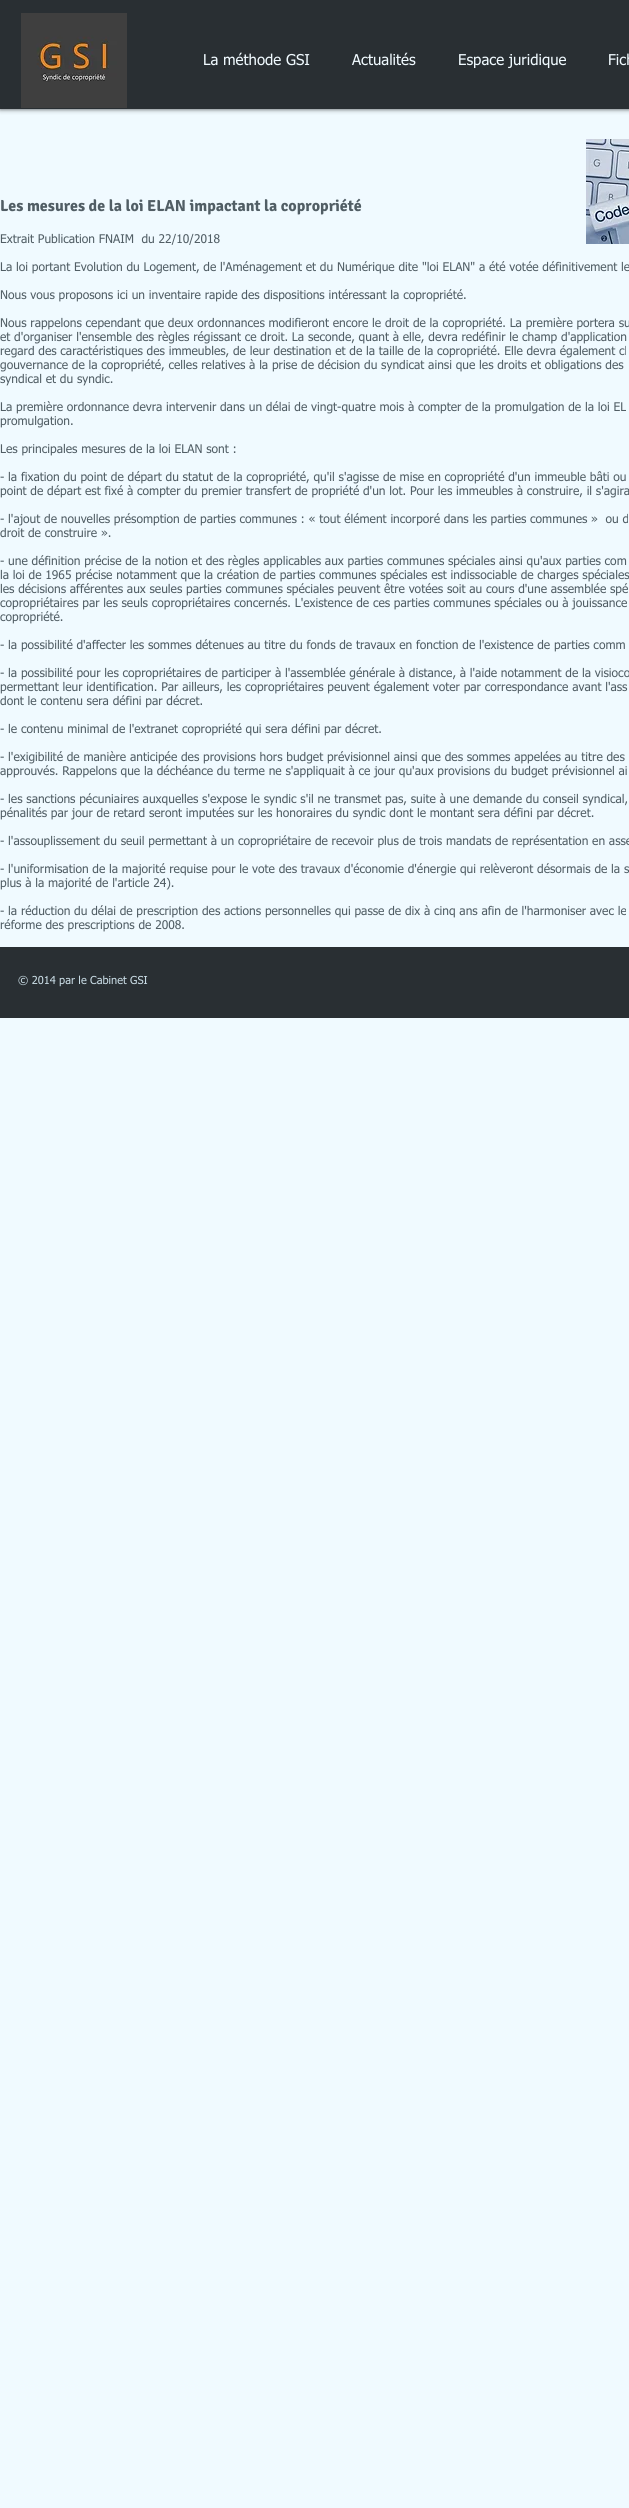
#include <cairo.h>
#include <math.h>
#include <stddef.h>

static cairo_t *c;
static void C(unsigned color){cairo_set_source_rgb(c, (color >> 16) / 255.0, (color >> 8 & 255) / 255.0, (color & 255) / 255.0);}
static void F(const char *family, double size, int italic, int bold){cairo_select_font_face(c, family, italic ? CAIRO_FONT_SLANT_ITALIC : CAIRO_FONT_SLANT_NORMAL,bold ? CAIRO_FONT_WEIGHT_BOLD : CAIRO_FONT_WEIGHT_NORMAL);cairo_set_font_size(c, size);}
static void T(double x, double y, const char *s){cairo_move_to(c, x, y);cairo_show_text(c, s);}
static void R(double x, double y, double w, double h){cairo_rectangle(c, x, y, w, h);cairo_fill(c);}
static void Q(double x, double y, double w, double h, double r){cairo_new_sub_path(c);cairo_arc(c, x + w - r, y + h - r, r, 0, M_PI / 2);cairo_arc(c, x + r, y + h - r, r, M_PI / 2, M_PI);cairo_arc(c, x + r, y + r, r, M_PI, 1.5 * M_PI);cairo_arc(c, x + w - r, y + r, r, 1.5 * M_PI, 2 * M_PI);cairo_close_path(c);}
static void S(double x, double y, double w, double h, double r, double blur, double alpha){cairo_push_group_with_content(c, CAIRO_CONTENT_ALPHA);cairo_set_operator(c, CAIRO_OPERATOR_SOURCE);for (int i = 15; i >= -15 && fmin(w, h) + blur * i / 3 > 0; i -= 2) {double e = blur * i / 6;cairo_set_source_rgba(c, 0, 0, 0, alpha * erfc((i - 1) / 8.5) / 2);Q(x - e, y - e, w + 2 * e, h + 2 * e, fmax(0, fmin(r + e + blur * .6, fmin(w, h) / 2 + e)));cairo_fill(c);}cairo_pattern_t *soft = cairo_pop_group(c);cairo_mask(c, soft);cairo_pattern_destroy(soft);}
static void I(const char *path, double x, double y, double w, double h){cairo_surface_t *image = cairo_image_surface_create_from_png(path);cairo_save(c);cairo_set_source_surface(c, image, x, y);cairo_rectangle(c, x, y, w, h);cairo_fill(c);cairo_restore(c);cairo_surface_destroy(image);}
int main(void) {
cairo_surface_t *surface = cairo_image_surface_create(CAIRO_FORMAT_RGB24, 629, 2508);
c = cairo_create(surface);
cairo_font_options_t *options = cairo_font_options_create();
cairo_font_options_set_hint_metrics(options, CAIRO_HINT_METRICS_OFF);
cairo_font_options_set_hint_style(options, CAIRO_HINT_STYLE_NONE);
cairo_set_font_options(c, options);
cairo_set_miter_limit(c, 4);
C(0xf0faff);
cairo_paint(c);
C(0x000000);
S(0,0,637,109,0,2.5,.7);
C(0x292f33);
R(0,0,629,109);
I("1.png",21,13,106,95);
F("tahoma",15,0,0);
C(0xf0faff);
T(203,65,"La méthode GSI");
T(352,65,"Actualités");
T(458,65,"Espace juridique");
T(608,65,"Fich");
I("2.png",586,139,43,105);
F("Signika",16,0,1);
C(0x515e65);
T(0,211,"Les mesures de la loi ELAN impactant la copropriété");
F("tahoma",12,0,0);
T(0,243,"Extrait Publication FNAIM  du 22/10/2018");
T(0,271,"La loi portant Evolution du Logement, de l'Aménagement et du Numérique dite \"loi ELAN\" a été votée définitivement le");
T(0,299,"Nous vous proposons ici un inventaire rapide des dispositions intéressant la copropriété.");
T(0,327,"Nous rappelons cependant que deux ordonnances modifieront encore le droit de la copropriété. La première portera su");
T(0,341,"et d'organiser l'ensemble des règles régissant ce droit. La seconde, quant à elle, devra redéfinir le champ d'application");
T(0,355,"regard des caractéristiques des immeubles, de leur destination et de la taille de la copropriété. Elle devra également cl");
T(0,369,"gouvernance de la copropriété, celles relatives à la prise de décision du syndicat ainsi que les droits et obligations des");
T(0,383,"syndical et du syndic.");
T(0,411,"La première ordonnance devra intervenir dans un délai de vingt-quatre mois à compter de la promulgation de la loi EL");
T(0,425,"promulgation.");
T(0,453,"Les principales mesures de la loi ELAN sont :");
T(0,481,"- la fixation du point de départ du statut de la copropriété, qu'il s'agisse de mise en copropriété d'un immeuble bâti ou");
T(0,495,"point de départ est fixé à compter du premier transfert de propriété d'un lot. Pour les immeubles à construire, il s'agira");
T(0,523,"- l'ajout de nouvelles présomption de parties communes : « tout élément incorporé dans les parties communes »  ou d");
T(0,537,"droit de construire ».");
T(0,565,"- une définition précise de la notion et des règles applicables aux parties communes spéciales ainsi qu'aux parties com");
T(0,579,"la loi de 1965 précise notamment que la création de parties communes spéciales est indissociable de charges spéciales");
T(0,593,"les décisions afférentes aux seules parties communes spéciales peuvent être votées soit au cours d'une assemblée spé");
T(0,607,"copropriétaires par les seuls copropriétaires concernés. L'existence de ces parties communes spéciales ou à jouissance");
T(0,621,"copropriété.");
T(0,649,"- la possibilité d'affecter les sommes détenues au titre du fonds de travaux en fonction de l'existence de parties comm");
T(0,677,"- la possibilité pour les copropriétaires de participer à l'assemblée générale à distance, à l'aide notamment de la visioco");
T(0,691,"permettant leur identification. Par ailleurs, les copropriétaires peuvent également voter par correspondance avant l'ass");
T(0,705,"dont le contenu sera défini par décret.");
T(0,733,"- le contenu minimal de l'extranet copropriété qui sera défini par décret.");
T(0,761,"- l'exigibilité de manière anticipée des provisions hors budget prévisionnel ainsi que des sommes appelées au titre des");
T(0,775,"approuvés. Rappelons que la déchéance du terme ne s'appliquait à ce jour qu'aux provisions du budget prévisionnel ai");
T(0,803,"- les sanctions pécuniaires auxquelles s'expose le syndic s'il ne transmet pas, suite à une demande du conseil syndical,");
T(0,817,"pénalités par jour de retard seront imputées sur les honoraires du syndic dont le montant sera défini par décret.");
T(0,845,"- l'assouplissement du seuil permettant à un copropriétaire de recevoir plus de trois mandats de représentation en asse");
T(0,873,"- l'uniformisation de la majorité requise pour le vote des travaux d'économie d'énergie qui relèveront désormais de la s");
T(0,887,"plus à la majorité de l'article 24).");
T(0,915,"- la réduction du délai de prescription des actions personnelles qui passe de dix à cinq ans afin de l'harmoniser avec le");
T(0,929,"réforme des prescriptions de 2008.");
C(0x292f33);
R(0,947,629,71);
F("tahoma",11,0,0);
C(0xcadde6);
T(18,984,"© 2014 par le Cabinet GSI");
cairo_surface_write_to_png(surface, "o.png");
cairo_font_options_destroy(options);
cairo_destroy(c);
cairo_surface_destroy(surface);
return 0;
}
